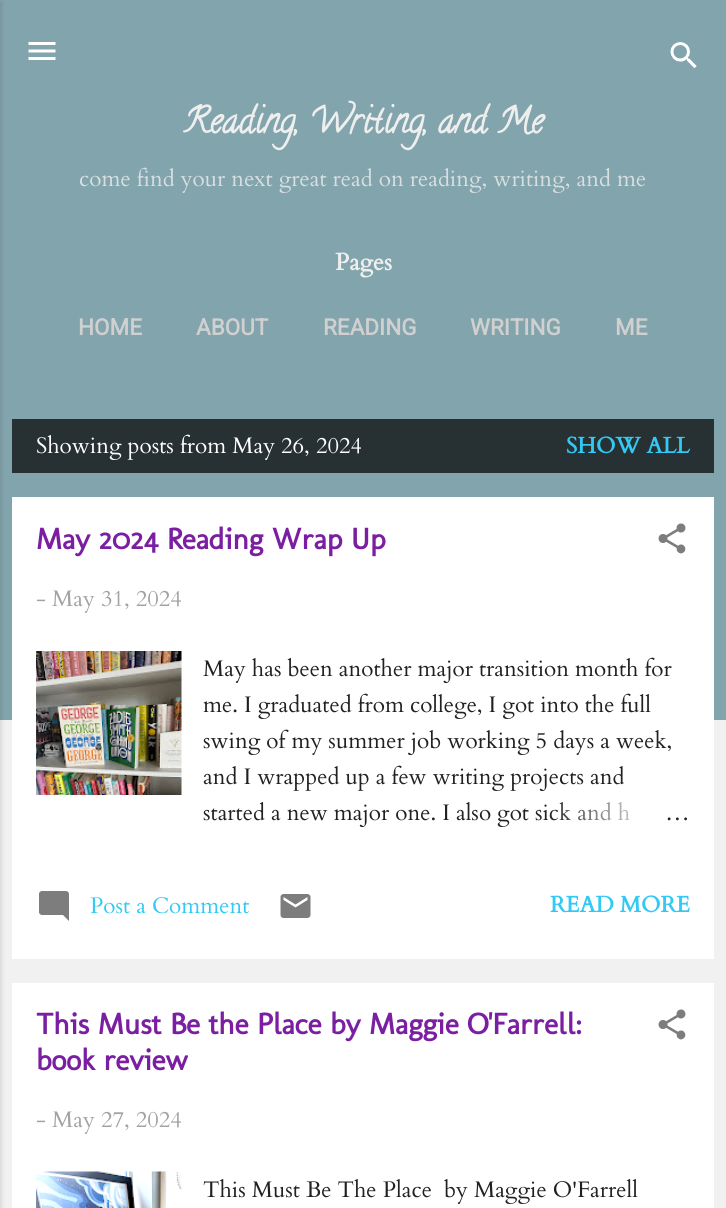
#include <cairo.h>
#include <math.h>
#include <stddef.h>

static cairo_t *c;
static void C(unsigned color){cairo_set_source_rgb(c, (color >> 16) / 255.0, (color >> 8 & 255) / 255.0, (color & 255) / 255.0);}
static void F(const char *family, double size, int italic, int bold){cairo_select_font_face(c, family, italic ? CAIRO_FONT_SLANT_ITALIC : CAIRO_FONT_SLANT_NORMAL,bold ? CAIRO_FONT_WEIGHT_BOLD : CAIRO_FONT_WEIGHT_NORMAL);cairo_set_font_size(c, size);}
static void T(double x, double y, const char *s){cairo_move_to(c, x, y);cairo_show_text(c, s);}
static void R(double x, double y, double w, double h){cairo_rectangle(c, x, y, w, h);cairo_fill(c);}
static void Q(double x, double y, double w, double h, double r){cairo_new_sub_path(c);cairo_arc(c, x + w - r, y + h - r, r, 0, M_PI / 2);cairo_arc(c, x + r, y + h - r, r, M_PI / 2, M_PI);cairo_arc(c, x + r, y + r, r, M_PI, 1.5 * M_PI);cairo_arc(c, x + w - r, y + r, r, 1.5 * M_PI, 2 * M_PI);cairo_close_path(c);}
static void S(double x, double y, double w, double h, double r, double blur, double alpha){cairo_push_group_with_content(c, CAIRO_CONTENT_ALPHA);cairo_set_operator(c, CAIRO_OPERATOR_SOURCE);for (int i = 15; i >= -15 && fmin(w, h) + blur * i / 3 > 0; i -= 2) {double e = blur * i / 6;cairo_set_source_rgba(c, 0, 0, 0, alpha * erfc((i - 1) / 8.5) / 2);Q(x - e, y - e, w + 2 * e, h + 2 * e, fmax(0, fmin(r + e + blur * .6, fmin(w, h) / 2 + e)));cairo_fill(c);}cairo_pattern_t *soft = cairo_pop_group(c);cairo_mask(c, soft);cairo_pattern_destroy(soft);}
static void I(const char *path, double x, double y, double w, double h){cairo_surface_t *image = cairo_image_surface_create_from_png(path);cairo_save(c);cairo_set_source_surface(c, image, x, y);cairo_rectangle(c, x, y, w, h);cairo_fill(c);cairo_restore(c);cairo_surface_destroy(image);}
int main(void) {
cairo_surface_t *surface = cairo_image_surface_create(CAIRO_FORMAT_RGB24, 726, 1208);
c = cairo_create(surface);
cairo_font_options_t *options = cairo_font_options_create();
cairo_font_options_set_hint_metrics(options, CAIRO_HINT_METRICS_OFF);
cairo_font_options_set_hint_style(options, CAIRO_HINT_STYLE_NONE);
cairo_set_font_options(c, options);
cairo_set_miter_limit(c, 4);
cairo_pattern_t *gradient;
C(0xf1f1f1);
cairo_paint(c);
C(0x82a4ac);
R(0,0,726,720);
C(0x000000);
S(-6,2,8,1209,0,2,.1);
I("1.png",28,42,28,18);
I("2.png",670,42,27,27);
F("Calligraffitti",36,0,1);
C(0xeeeeee);
T(183,132,"Reading, Writing, and Me");
F("Cardo",22.5,0,0);
C(0xd8dfe1);
T(79,186,"come find your next great read on reading, writing, and me");
F("Cardo",24,0,1);
C(0xeeeeee);
T(335,270,"Pages");
F("Roboto",22.5,0,1);
C(0xd0d0d0);
T(78,335,"HOME");
T(196,335,"ABOUT");
T(323,335,"READING");
T(470,335,"WRITING");
T(615,335,"ME");
C(0x273134);
R(12,419,702,54);
F("Cardo",22.5,0,0);
C(0xffffff);
T(36,453,"Showing posts from May 26, 2024");
F("Cardo",22.5,0,1);
C(0x32c9f4);
T(566,453,"SHOW ALL");
C(0xffffff);
R(12,497,702,462);
F("Molengo",30,0,1);
C(0x7b1fa2);
T(36,549,"May 2024 Reading Wrap Up");
I("3.png",658,523,28,31);
F("Cardo",22.5,0,0);
C(0xa2a2a2);
T(36,606,"- May 31, 2024");
I("4.png",36,651,146,144);
C(0x212121);
T(203,676,"May has been another major transition month for");
T(203,712,"me. I graduated from college, I got into the full");
T(203,748,"swing of my summer job working 5 days a week,");
T(203,784,"and I wrapped up a few writing projects and");
T(203,820,"started a new major one. I also got sick and h");
gradient = cairo_pattern_create_linear(690,813,546,813);
cairo_pattern_add_color_stop_rgba(gradient,0,1,1,1,1);
cairo_pattern_add_color_stop_rgba(gradient,.2,1,1,1,1);
cairo_pattern_add_color_stop_rgba(gradient,1,1,1,1,0);
cairo_set_source(c,gradient);
cairo_pattern_destroy(gradient);
R(550,802,80,19);
C(0x212121);
T(665,820,"…");
I("5.png",39,891,30,30);
C(0x32c9f4);
T(90,913,"Post a Comment");
I("6.png",280,894,31,24);
F("Cardo",22.5,0,1);
T(550,912,"READ MORE");
C(0xffffff);
R(12,983,702,225);
F("Molengo",30,0,1);
C(0x7b1fa2);
T(36,1034,"This Must Be the Place by Maggie O'Farrell:");
T(36,1070,"book review");
I("7.png",658,1009,28,31);
F("Cardo",22.5,0,0);
C(0xa2a2a2);
T(36,1127,"- May 27, 2024");
I("8.png",36,1171,146,37);
C(0x212121);
T(203,1197,"This Must Be The Place  by Maggie O'Farrell");
cairo_surface_write_to_png(surface, "o.png");
cairo_font_options_destroy(options);
cairo_destroy(c);
cairo_surface_destroy(surface);
return 0;
}
